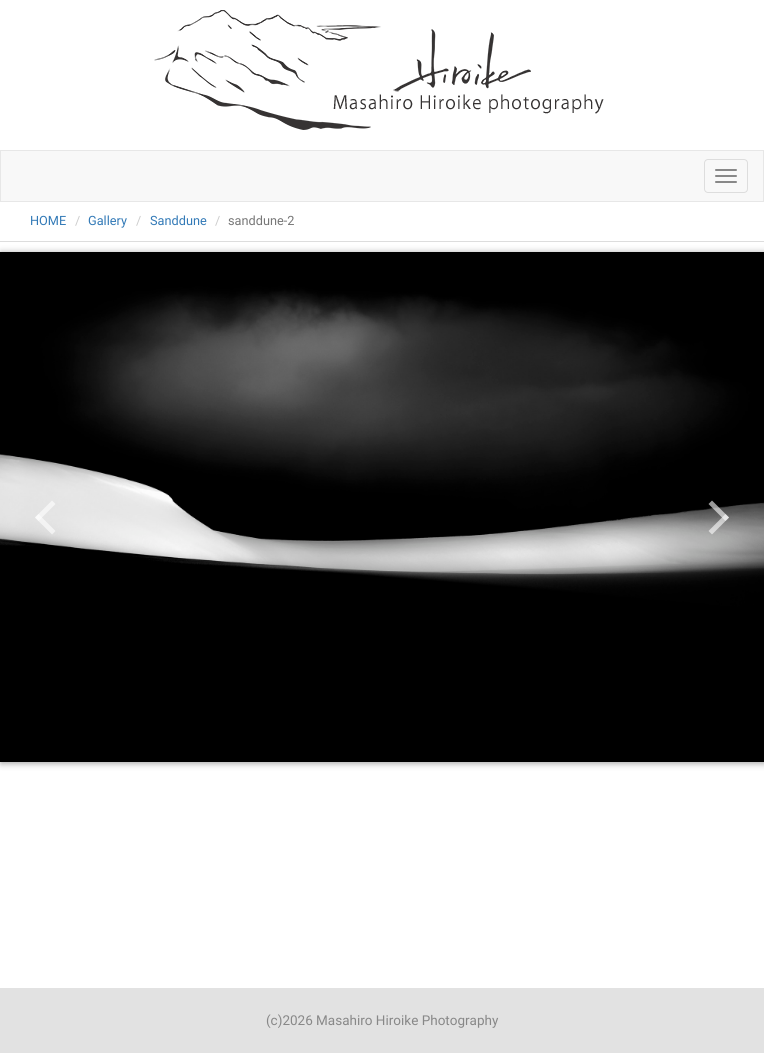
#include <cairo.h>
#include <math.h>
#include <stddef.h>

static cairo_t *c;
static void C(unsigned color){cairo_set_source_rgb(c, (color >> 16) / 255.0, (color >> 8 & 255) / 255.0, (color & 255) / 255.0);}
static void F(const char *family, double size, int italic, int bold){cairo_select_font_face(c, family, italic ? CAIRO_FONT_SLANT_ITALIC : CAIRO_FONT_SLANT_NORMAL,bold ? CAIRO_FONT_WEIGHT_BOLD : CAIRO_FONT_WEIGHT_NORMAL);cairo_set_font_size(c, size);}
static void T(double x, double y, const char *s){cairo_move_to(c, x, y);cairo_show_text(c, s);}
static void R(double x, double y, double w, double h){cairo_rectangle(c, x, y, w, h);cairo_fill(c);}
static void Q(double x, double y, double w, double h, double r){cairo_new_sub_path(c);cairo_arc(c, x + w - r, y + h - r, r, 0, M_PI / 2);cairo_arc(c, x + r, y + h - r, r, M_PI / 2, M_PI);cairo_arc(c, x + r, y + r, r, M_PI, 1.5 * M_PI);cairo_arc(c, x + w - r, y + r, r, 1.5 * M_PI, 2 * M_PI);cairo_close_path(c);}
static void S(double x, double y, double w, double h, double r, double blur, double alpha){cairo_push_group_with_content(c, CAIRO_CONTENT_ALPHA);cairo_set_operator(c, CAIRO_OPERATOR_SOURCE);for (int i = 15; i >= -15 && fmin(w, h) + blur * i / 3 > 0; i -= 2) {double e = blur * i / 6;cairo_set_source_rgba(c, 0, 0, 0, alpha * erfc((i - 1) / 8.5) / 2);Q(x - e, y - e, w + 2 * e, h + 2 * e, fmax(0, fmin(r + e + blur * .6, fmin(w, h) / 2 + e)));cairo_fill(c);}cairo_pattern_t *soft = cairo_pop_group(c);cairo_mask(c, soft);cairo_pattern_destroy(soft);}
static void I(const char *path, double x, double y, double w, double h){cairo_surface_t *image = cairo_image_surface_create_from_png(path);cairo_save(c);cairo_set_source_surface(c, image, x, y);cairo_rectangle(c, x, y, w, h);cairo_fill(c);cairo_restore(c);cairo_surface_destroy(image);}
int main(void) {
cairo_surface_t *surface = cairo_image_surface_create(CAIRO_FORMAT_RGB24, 764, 1053);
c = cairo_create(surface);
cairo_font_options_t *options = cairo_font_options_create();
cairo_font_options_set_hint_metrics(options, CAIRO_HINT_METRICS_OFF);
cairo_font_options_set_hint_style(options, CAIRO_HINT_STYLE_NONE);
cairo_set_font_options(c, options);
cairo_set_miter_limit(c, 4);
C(0xffffff);
cairo_paint(c);
I("1.png",154,10,450,120);
C(0xf8f8f8);
cairo_rectangle(c,.5,150.5,763,51);
cairo_fill_preserve(c);
C(0xe7e7e7);
cairo_set_line_width(c,1);
cairo_stroke(c);
Q(704.5,159.5,43,33,3.5);
C(0xdddddd);
cairo_stroke(c);
C(0x888888);
Q(715,169,22,2,1);
cairo_fill(c);
Q(715,175,22,2,1);
cairo_fill(c);
Q(715,181,22,2,1);
cairo_fill(c);
F("Roboto",12.75,0,0);
C(0x337ab7);
T(30,225,"HOME");
C(0xcccccc);
T(75,225,"/");
C(0x337ab7);
T(88,225,"Gallery");
C(0xcccccc);
T(136,225,"/");
C(0x337ab7);
T(150,225,"Sanddune");
C(0xcccccc);
T(215,225,"/");
C(0x777777);
T(228,225,"sanddune-2");
C(0xdddddd);
R(0,241,764,1);
C(0x999999);
S(1,253,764,510,0,3.5,1);
I("2.png",0,252,764,510);
cairo_set_source_rgba(c,1,1,1,0.6);
cairo_new_path(c);
cairo_move_to(c,35,517.5);
cairo_line_to(c,52,500.5);
cairo_line_to(c,55.5,504);
cairo_line_to(c,38.5,521);
cairo_close_path(c);
cairo_fill(c);
cairo_new_path(c);
cairo_move_to(c,35,517.5);
cairo_line_to(c,38.5,514);
cairo_line_to(c,55.5,531);
cairo_line_to(c,52,534.5);
cairo_close_path(c);
cairo_fill(c);
cairo_new_path(c);
cairo_move_to(c,712,500.5);
cairo_line_to(c,729,517.5);
cairo_line_to(c,725.5,521);
cairo_line_to(c,708.5,504);
cairo_close_path(c);
cairo_fill(c);
cairo_new_path(c);
cairo_move_to(c,725.5,514);
cairo_line_to(c,729,517.5);
cairo_line_to(c,712,534.5);
cairo_line_to(c,708.5,531);
cairo_close_path(c);
cairo_fill(c);
C(0xe2e2e2);
R(0,988,764,65);
F("Roboto",13.5,0,0);
C(0x888888);
T(266,1025,"(c)2026 Masahiro Hiroike Photography");
cairo_surface_write_to_png(surface, "o.png");
cairo_font_options_destroy(options);
cairo_destroy(c);
cairo_surface_destroy(surface);
return 0;
}
